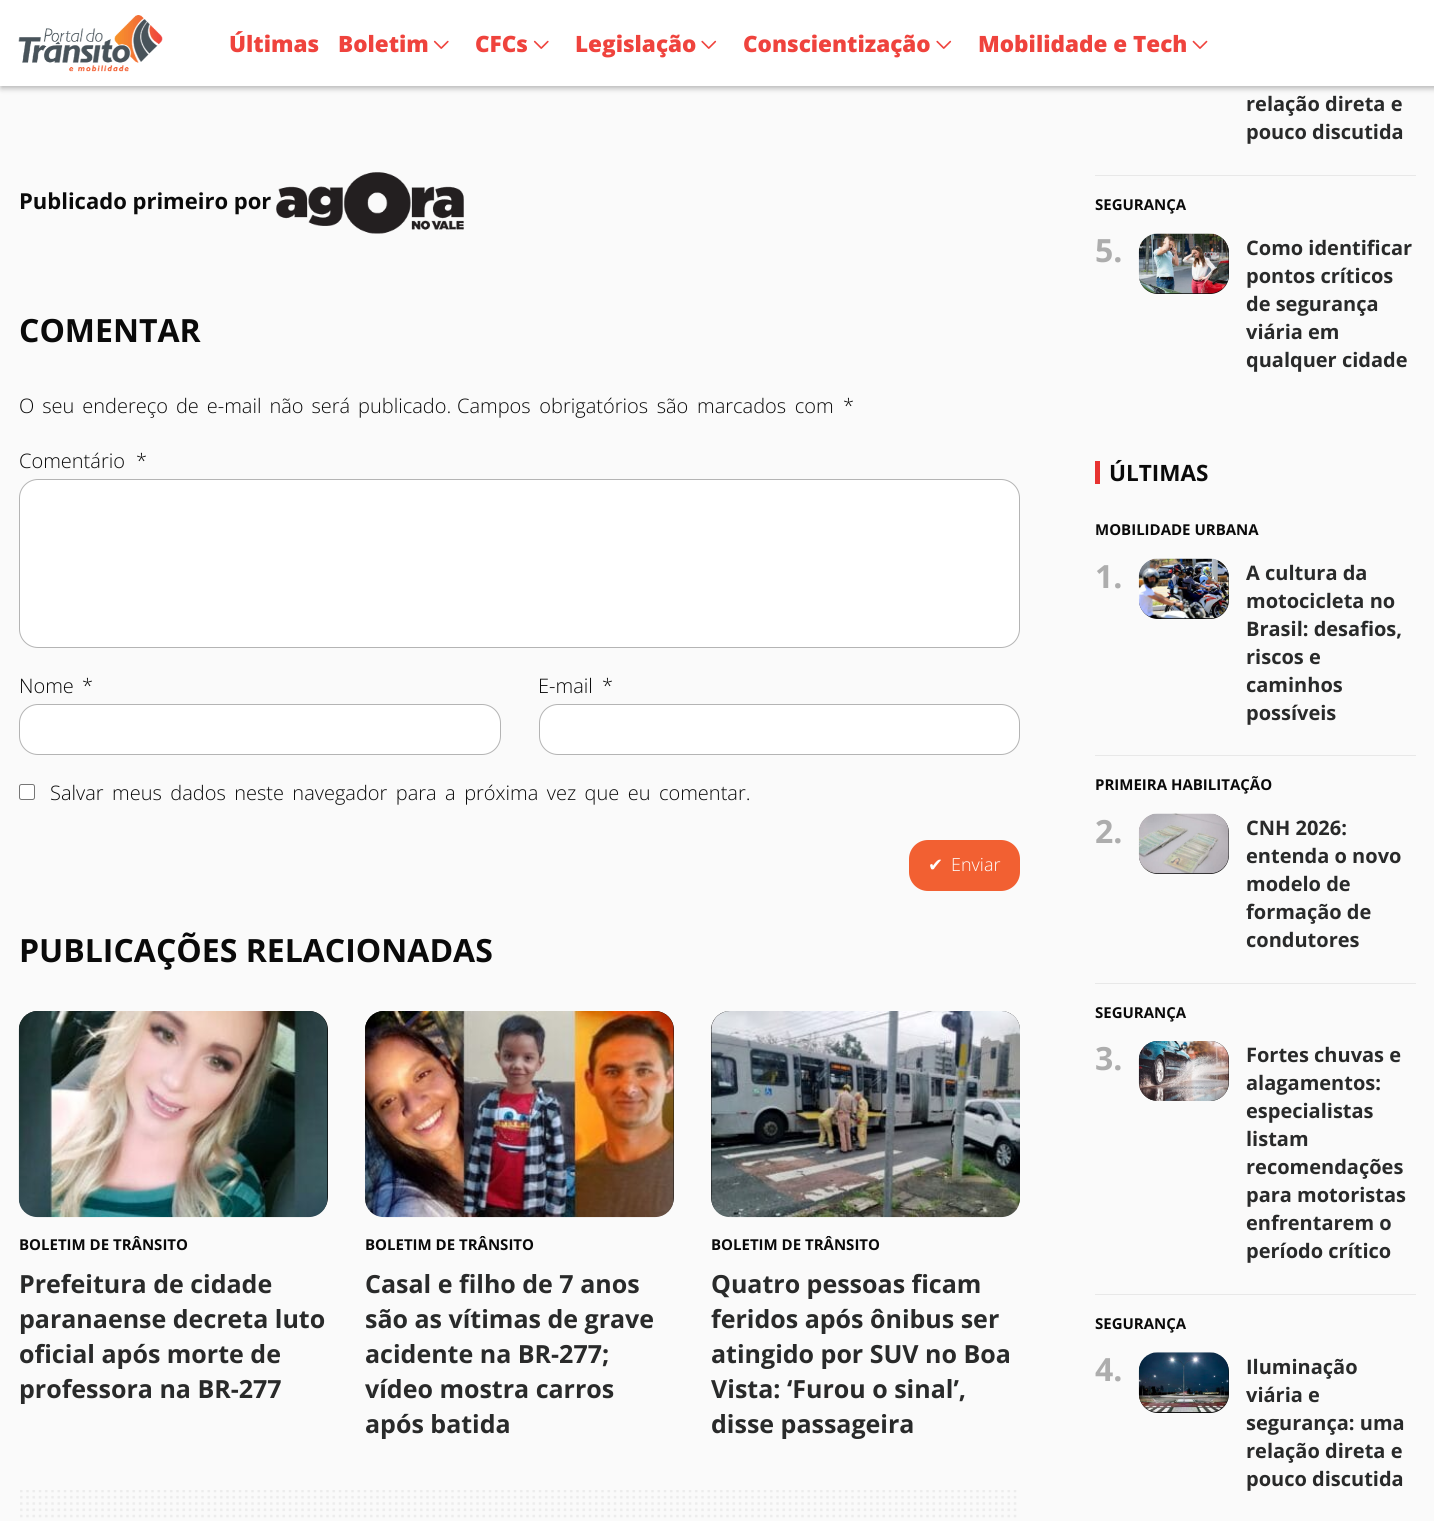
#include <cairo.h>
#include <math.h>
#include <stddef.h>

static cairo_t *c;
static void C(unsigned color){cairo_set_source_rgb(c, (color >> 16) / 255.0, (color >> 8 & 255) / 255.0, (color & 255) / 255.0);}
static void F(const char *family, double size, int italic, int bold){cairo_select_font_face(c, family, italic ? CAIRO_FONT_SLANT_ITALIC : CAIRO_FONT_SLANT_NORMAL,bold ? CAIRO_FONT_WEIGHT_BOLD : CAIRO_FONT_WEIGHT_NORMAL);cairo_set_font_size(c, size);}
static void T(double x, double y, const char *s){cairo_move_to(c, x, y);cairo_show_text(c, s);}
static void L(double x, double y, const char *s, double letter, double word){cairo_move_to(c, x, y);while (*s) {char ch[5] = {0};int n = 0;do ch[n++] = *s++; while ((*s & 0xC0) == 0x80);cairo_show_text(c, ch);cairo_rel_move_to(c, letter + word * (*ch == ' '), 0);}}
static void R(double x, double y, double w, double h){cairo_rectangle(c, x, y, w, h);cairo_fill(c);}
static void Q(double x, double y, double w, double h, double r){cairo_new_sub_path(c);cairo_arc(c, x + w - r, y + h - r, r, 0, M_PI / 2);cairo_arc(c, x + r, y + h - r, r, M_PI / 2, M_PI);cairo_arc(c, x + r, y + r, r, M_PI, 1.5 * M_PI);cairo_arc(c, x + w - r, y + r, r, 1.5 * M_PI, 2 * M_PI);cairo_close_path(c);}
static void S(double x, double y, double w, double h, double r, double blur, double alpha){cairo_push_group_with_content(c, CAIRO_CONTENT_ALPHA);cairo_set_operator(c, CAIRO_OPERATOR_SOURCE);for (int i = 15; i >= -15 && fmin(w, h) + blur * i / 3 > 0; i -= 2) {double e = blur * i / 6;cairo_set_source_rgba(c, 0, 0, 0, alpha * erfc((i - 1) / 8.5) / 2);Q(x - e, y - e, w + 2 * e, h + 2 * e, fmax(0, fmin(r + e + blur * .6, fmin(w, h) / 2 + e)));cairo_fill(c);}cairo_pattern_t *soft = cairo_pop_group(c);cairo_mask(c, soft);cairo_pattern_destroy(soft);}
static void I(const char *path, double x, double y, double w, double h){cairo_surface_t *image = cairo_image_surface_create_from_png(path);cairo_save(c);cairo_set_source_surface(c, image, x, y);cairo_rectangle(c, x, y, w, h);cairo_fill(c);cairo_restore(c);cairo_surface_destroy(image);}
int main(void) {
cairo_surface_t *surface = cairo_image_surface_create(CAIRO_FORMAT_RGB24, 1434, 1521);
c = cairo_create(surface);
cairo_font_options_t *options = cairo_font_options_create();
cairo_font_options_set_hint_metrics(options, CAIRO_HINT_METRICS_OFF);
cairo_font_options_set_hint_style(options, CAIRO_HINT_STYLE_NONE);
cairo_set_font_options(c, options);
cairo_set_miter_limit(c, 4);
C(0xfafafa);
cairo_paint(c);
C(0x000000);
S(1,1,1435,87,0,3,.3);
C(0xffffff);
R(0,0,1434,86);
I("1.png",18,15,145,57);
F("Open Sans ExtraBold",22.5,0,0);
C(0xef433d);
T(229,52,"Últimas");
T(338,52,"Boletim");
I("2.png",433,40,16,9);
T(475,52,"CFCs");
I("2.png",533,40,16,9);
T(575,52,"Legislação");
I("3.png",701,40,16,9);
T(743,52,"Conscientização");
I("3.png",936,40,16,9);
T(978,52,"Mobilidade e Tech");
I("4.png",1192,40,16,9);
F("Open Sans",22,0,1);
C(0x0a0a0a);
T(19,209,"Publicado primeiro por");
I("5.png",276,172,188,62);
F("Open Sans",32,0,1);
T(19,342,"COMENTAR");
F("Open Sans Light",20,0,0);
L(19,413,"O seu endereço de e-mail não será publicado.",0,2.75);
L(457,413,"Campos obrigatórios são marcados com",0,3.5);
T(843,413,"*");
T(19,468,"Comentário");
T(136,468,"*");
C(0xffffff);
Q(19.5,479.5,1000,168,18.5);
cairo_fill_preserve(c);
C(0xb4b4b4);
cairo_set_line_width(c,1);
cairo_stroke(c);
C(0x0a0a0a);
T(19,693,"Nome");
T(82,693,"*");
C(0xffffff);
Q(19.5,704.5,481,50,18.5);
cairo_fill_preserve(c);
C(0xb4b4b4);
cairo_stroke(c);
C(0x0a0a0a);
T(538,693,"E-mail");
T(602,693,"*");
C(0xffffff);
Q(539.5,704.5,480,50,18.5);
cairo_fill_preserve(c);
C(0xb4b4b4);
cairo_stroke(c);
C(0xffffff);
Q(19.5,784.5,15,15,2);
cairo_fill_preserve(c);
C(0x767676);
cairo_stroke(c);
C(0x0a0a0a);
L(50,800,"Salvar meus dados neste navegador para a próxima vez que eu comentar.",0,3.25);
C(0xf26032);
Q(909,840,111,51,19);
cairo_fill(c);
F("DejaVu Sans",18,0,0);
C(0xfefefe);
T(928,871,"✔");
F("Open Sans Light",18,0,0);
T(951,871,"Enviar");
F("Open Sans",32,0,1);
C(0x0a0a0a);
T(19,962,"PUBLICAÇÕES RELACIONADAS");
Q(19,1011,309,205,19);
cairo_fill(c);
I("6.png",18,1011,310,207);
F("Open Sans",15,0,1);
T(19,1250,"BOLETIM DE TRÂNSITO");
F("Open Sans",25,0,1);
C(0x292a2a);
T(19,1293,"Prefeitura de cidade");
T(19,1328,"paranaense decreta luto");
T(19,1363,"oficial após morte de");
T(19,1398,"professora na BR-277");
C(0x0a0a0a);
Q(365,1011,309,205,19);
cairo_fill(c);
I("7.png",365,1011,309,207);
F("Open Sans",15,0,1);
T(365,1250,"BOLETIM DE TRÂNSITO");
F("Open Sans",25,0,1);
C(0x292a2a);
T(365,1293,"Casal e filho de 7 anos");
T(365,1328,"são as vítimas de grave");
T(365,1363,"acidente na BR-277;");
T(365,1398,"vídeo mostra carros");
T(365,1433,"após batida");
C(0x0a0a0a);
Q(711,1011,309,205,19);
cairo_fill(c);
I("8.png",711,1011,309,207);
F("Open Sans",15,0,1);
T(711,1250,"BOLETIM DE TRÂNSITO");
F("Open Sans",25,0,1);
C(0x292a2a);
T(711,1293,"Quatro pessoas ficam");
T(711,1328,"feridos após ônibus ser");
T(711,1363,"atingido por SUV no Boa");
T(711,1398,"Vista: ‘Furou o sinal’,");
T(711,1433,"disse passageira");
I("9.png",20,1490,997,28);
C(0xe8e8e8);
R(1095,175,321,1);
F("Open Sans",20,0,1);
C(0x292a2a);
T(1246,111,"relação direta e");
T(1246,139,"pouco discutida");
F("Open Sans",15,0,1);
C(0x0a0a0a);
T(1095,210,"SEGURANÇA");
F("Open Sans",32,0,1);
C(0xadadad);
T(1095,262,"5.");
C(0x0a0a0a);
Q(1139,234,90,60,19);
cairo_fill(c);
I("10.png",1138,233,91,61);
F("Open Sans",20,0,1);
C(0x292a2a);
T(1246,255,"Como identificar");
T(1246,283,"pontos críticos");
T(1246,311,"de segurança");
T(1246,339,"viária em");
T(1246,367,"qualquer cidade");
C(0xe73331);
R(1095,461,5,23);
F("Open Sans",22.5,0,1);
C(0x0a0a0a);
T(1109,481,"ÚLTIMAS");
C(0xe8e8e8);
R(1095,755,321,1);
F("Open Sans",15,0,1);
C(0x0a0a0a);
T(1095,535,"MOBILIDADE URBANA");
F("Open Sans",32,0,1);
C(0xadadad);
T(1095,588,"1.");
C(0x0a0a0a);
Q(1139,559,90,60,19);
cairo_fill(c);
I("11.png",1138,558,91,61);
F("Open Sans",20,0,1);
C(0x292a2a);
T(1246,580,"A cultura da");
T(1246,608,"motocicleta no");
T(1246,636,"Brasil: desafios,");
T(1246,664,"riscos e");
T(1246,692,"caminhos");
T(1246,720,"possíveis");
C(0xe8e8e8);
R(1095,983,321,1);
F("Open Sans",15,0,1);
C(0x0a0a0a);
T(1095,790,"PRIMEIRA HABILITAÇÃO");
F("Open Sans",32,0,1);
C(0xadadad);
T(1095,843,"2.");
C(0x0a0a0a);
Q(1139,814,90,60,19);
cairo_fill(c);
I("12.png",1138,813,91,61);
F("Open Sans",20,0,1);
C(0x292a2a);
T(1246,835,"CNH 2026:");
T(1246,863,"entenda o novo");
T(1246,891,"modelo de");
T(1246,919,"formação de");
T(1246,947,"condutores");
C(0xe8e8e8);
R(1095,1294,321,1);
F("Open Sans",15,0,1);
C(0x0a0a0a);
T(1095,1018,"SEGURANÇA");
F("Open Sans",32,0,1);
C(0xadadad);
T(1095,1070,"3.");
C(0x0a0a0a);
Q(1139,1041,90,60,19);
cairo_fill(c);
I("13.png",1138,1041,91,60);
F("Open Sans",20,0,1);
C(0x292a2a);
T(1246,1062,"Fortes chuvas e");
T(1246,1090,"alagamentos:");
T(1246,1118,"especialistas");
T(1246,1146,"listam");
T(1246,1174,"recomendações");
T(1246,1202,"para motoristas");
T(1246,1230,"enfrentarem o");
T(1246,1258,"período crítico");
F("Open Sans",15,0,1);
C(0x0a0a0a);
T(1095,1329,"SEGURANÇA");
F("Open Sans",32,0,1);
C(0xadadad);
T(1095,1381,"4.");
C(0x0a0a0a);
Q(1139,1353,90,60,19);
cairo_fill(c);
I("14.png",1138,1352,91,61);
F("Open Sans",20,0,1);
C(0x292a2a);
T(1246,1374,"Iluminação");
T(1246,1402,"viária e");
T(1246,1430,"segurança: uma");
T(1246,1458,"relação direta e");
T(1246,1486,"pouco discutida");
cairo_surface_write_to_png(surface, "o.png");
cairo_font_options_destroy(options);
cairo_destroy(c);
cairo_surface_destroy(surface);
return 0;
}
